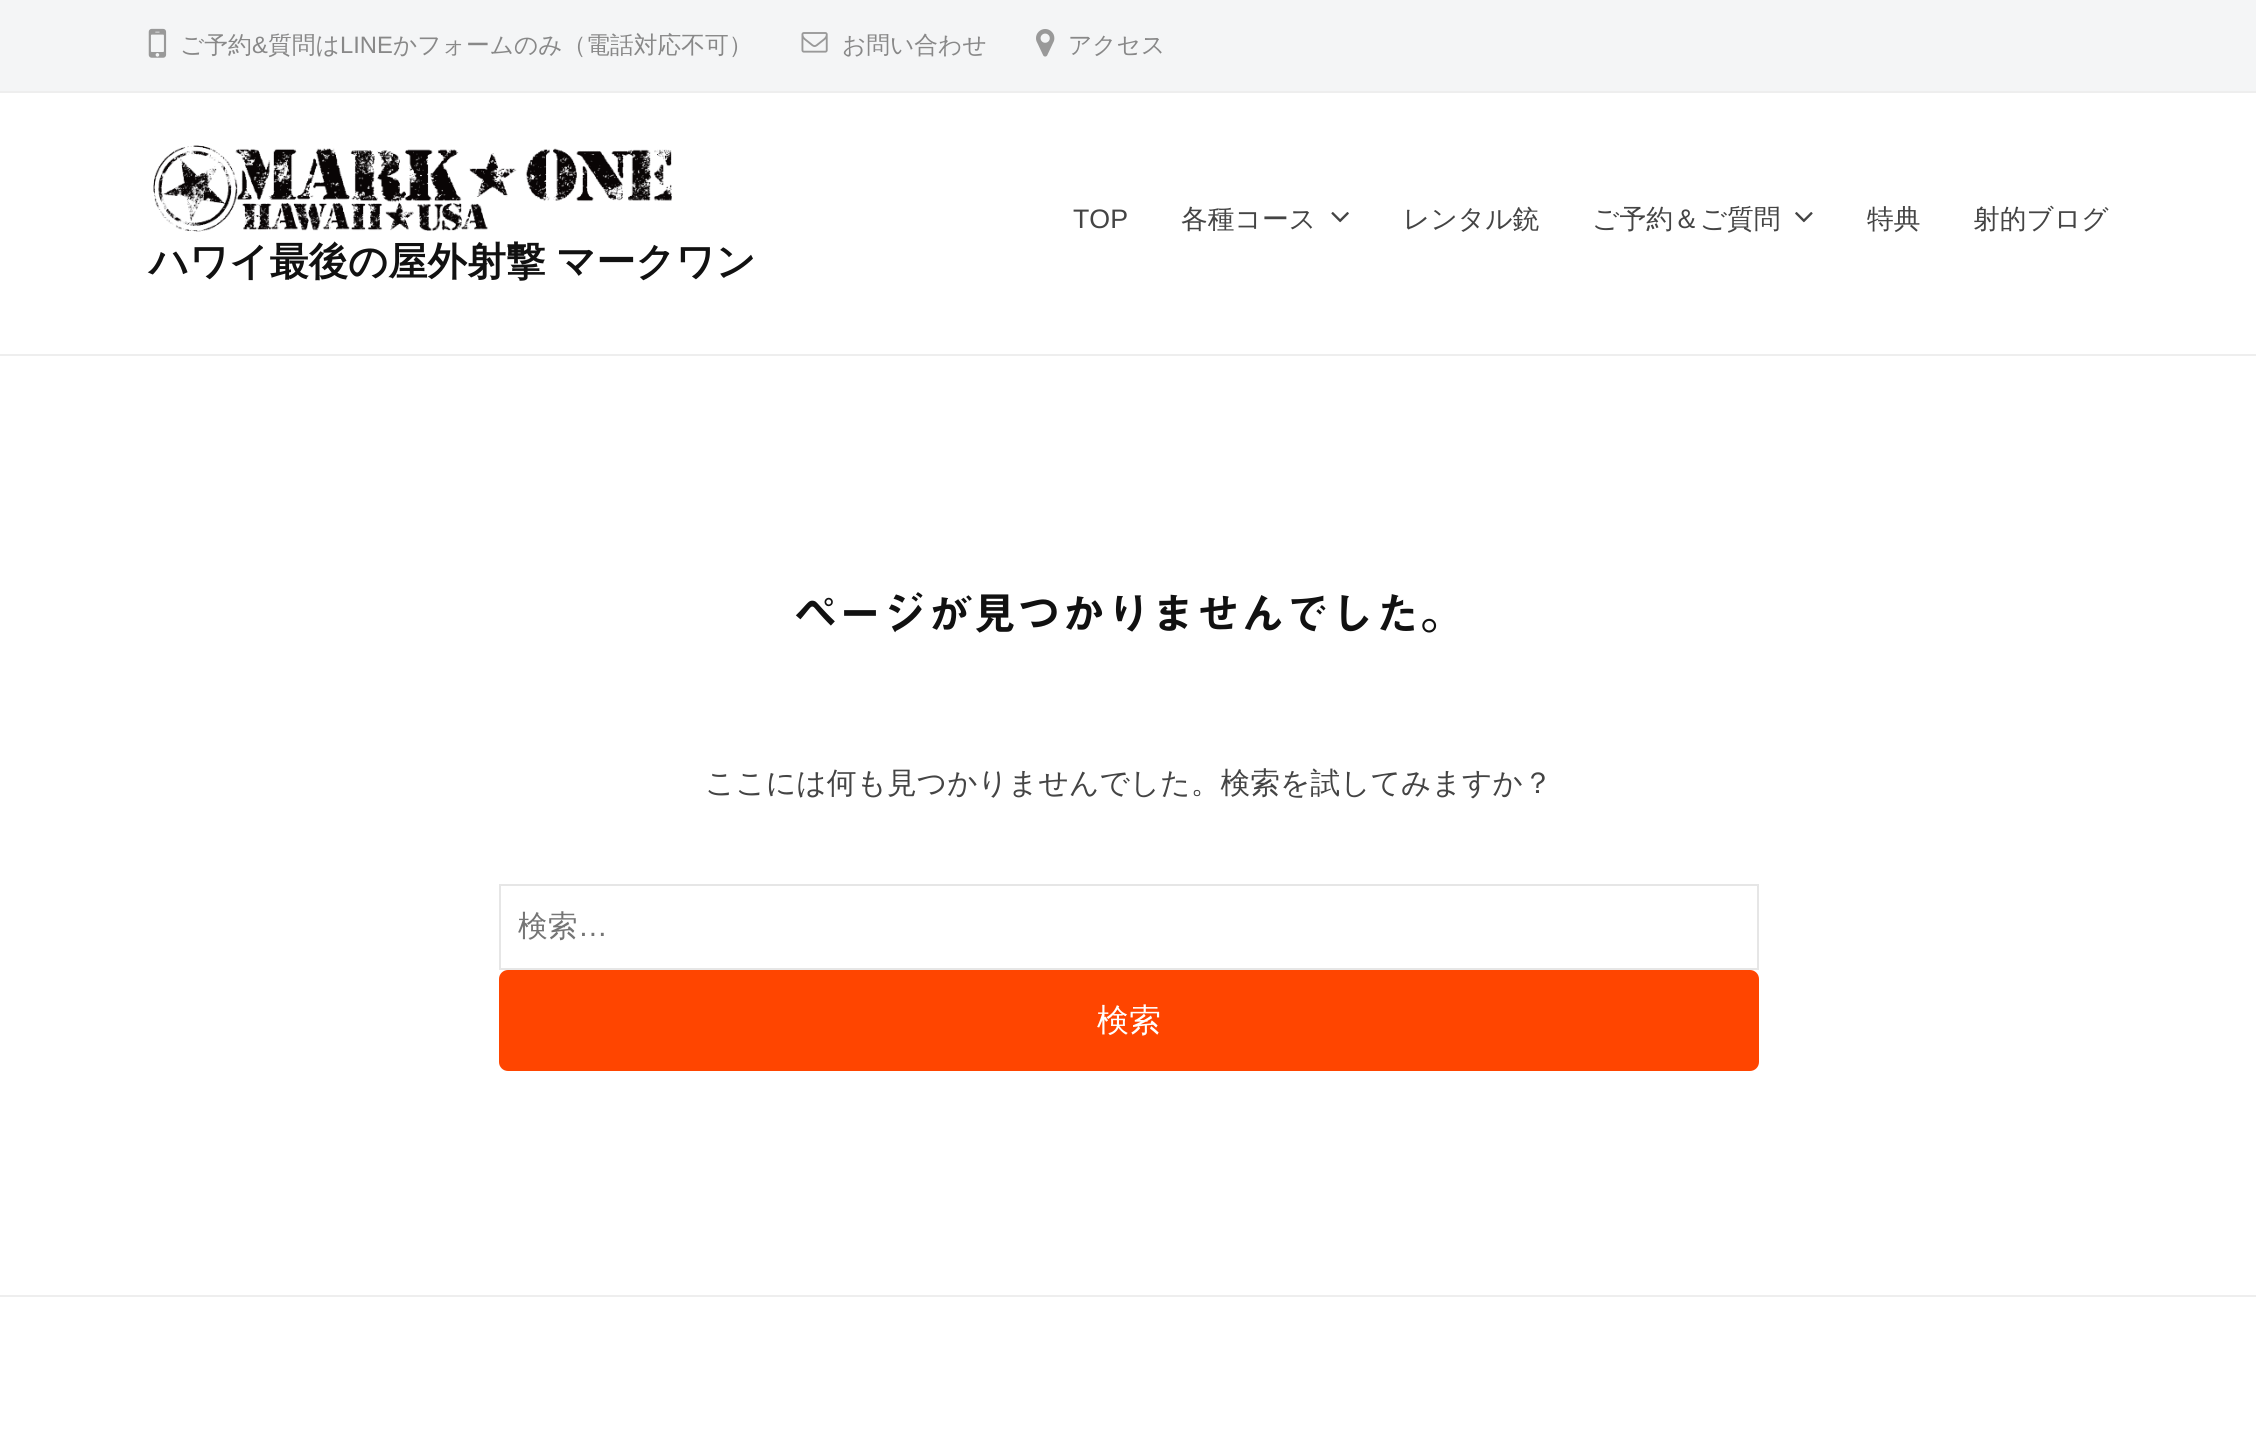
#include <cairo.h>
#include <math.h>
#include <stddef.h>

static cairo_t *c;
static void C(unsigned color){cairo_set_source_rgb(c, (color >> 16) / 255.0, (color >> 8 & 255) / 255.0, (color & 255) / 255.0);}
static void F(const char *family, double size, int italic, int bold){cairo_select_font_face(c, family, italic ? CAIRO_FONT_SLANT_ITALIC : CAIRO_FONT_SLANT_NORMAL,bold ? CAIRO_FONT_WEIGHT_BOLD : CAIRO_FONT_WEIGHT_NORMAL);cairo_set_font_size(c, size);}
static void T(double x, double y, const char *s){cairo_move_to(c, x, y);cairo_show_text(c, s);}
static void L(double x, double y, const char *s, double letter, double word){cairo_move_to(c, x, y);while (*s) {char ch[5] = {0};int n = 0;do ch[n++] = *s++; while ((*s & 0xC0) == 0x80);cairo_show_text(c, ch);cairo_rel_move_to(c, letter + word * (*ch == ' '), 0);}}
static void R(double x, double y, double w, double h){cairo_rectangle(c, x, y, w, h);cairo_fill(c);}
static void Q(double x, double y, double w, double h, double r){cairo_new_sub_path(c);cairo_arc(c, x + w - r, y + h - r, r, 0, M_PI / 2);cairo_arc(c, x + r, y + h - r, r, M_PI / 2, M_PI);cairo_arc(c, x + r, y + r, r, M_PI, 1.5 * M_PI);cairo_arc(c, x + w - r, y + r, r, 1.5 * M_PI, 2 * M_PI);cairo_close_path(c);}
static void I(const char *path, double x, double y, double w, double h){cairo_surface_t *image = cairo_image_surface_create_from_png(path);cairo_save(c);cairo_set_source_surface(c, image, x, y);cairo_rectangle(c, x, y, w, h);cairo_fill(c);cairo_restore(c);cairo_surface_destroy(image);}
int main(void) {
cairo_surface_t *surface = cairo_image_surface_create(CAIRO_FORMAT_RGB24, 2256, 1443);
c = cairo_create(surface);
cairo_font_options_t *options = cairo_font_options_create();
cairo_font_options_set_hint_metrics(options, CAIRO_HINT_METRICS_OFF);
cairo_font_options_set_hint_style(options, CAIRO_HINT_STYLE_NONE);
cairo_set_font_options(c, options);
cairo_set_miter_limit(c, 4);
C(0xffffff);
cairo_paint(c);
C(0xeeeeee);
R(0,354,2256,2);
C(0xf4f5f6);
R(0,0,2256,91);
C(0xeeeeee);
R(0,91,2256,2);
I("1.png",148,28,19,30);
F("WenQuanYi Zen Hei Medium",23.75,0,0);
C(0x888888);
T(180,53,"ご予約");
F("Liberation Sans",23.75,0,0);
T(252,53,"&");
F("WenQuanYi Zen Hei Medium",23.75,0,0);
T(268,53,"質問は");
F("Liberation Sans",23.75,0,0);
T(340,53,"LINE");
F("WenQuanYi Zen Hei Medium",23.75,0,0);
T(393,53,"かフォームのみ（電話対応不可）");
I("2.png",801,32,27,21);
T(842,53,"お問い合わせ");
I("3.png",1036,29,19,28);
T(1068,53,"アクセス");
F("Liberation Sans",26.75,0,0);
C(0x444444);
T(1073,228,"TOP");
F("WenQuanYi Zen Hei Medium",26.75,0,0);
T(1181,228,"各種コース");
I("4.png",1331,212,18,11);
T(1403,228,"レンタル銃");
T(1592,228,"ご予約＆ご質問");
I("5.png",1795,212,18,11);
T(1867,228,"特典");
T(1973,228,"射的ブログ");
I("6.png",153,145,519,87);
F("WenQuanYi Zen Hei",39.25,0,1);
C(0x111111);
L(149,275,"ハワイ最後の屋外射撃 マークワン",0,-1);
F("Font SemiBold",44.75,0,0);
T(793,630,"ページが見つかりませんでした。");
F("WenQuanYi Zen Hei Medium",29.75,0,0);
C(0x444444);
T(705,793,"ここには何も見つかりませんでした。検索を試してみますか？");
cairo_rectangle(c,500,885,1258,84);
C(0xe6e6e6);
cairo_stroke(c);
C(0x757575);
T(518,936,"検索");
F("Liberation Sans",29.75,0,0);
T(578,936,"…");
C(0xff4500);
Q(499,970,1260,101,9);
cairo_fill(c);
F("WenQuanYi Zen Hei Medium",32,0,0);
C(0xffffff);
T(1097,1031,"検索");
C(0xeeeeee);
R(0,1295,2256,2);
cairo_surface_write_to_png(surface, "o.png");
cairo_font_options_destroy(options);
cairo_destroy(c);
cairo_surface_destroy(surface);
return 0;
}
